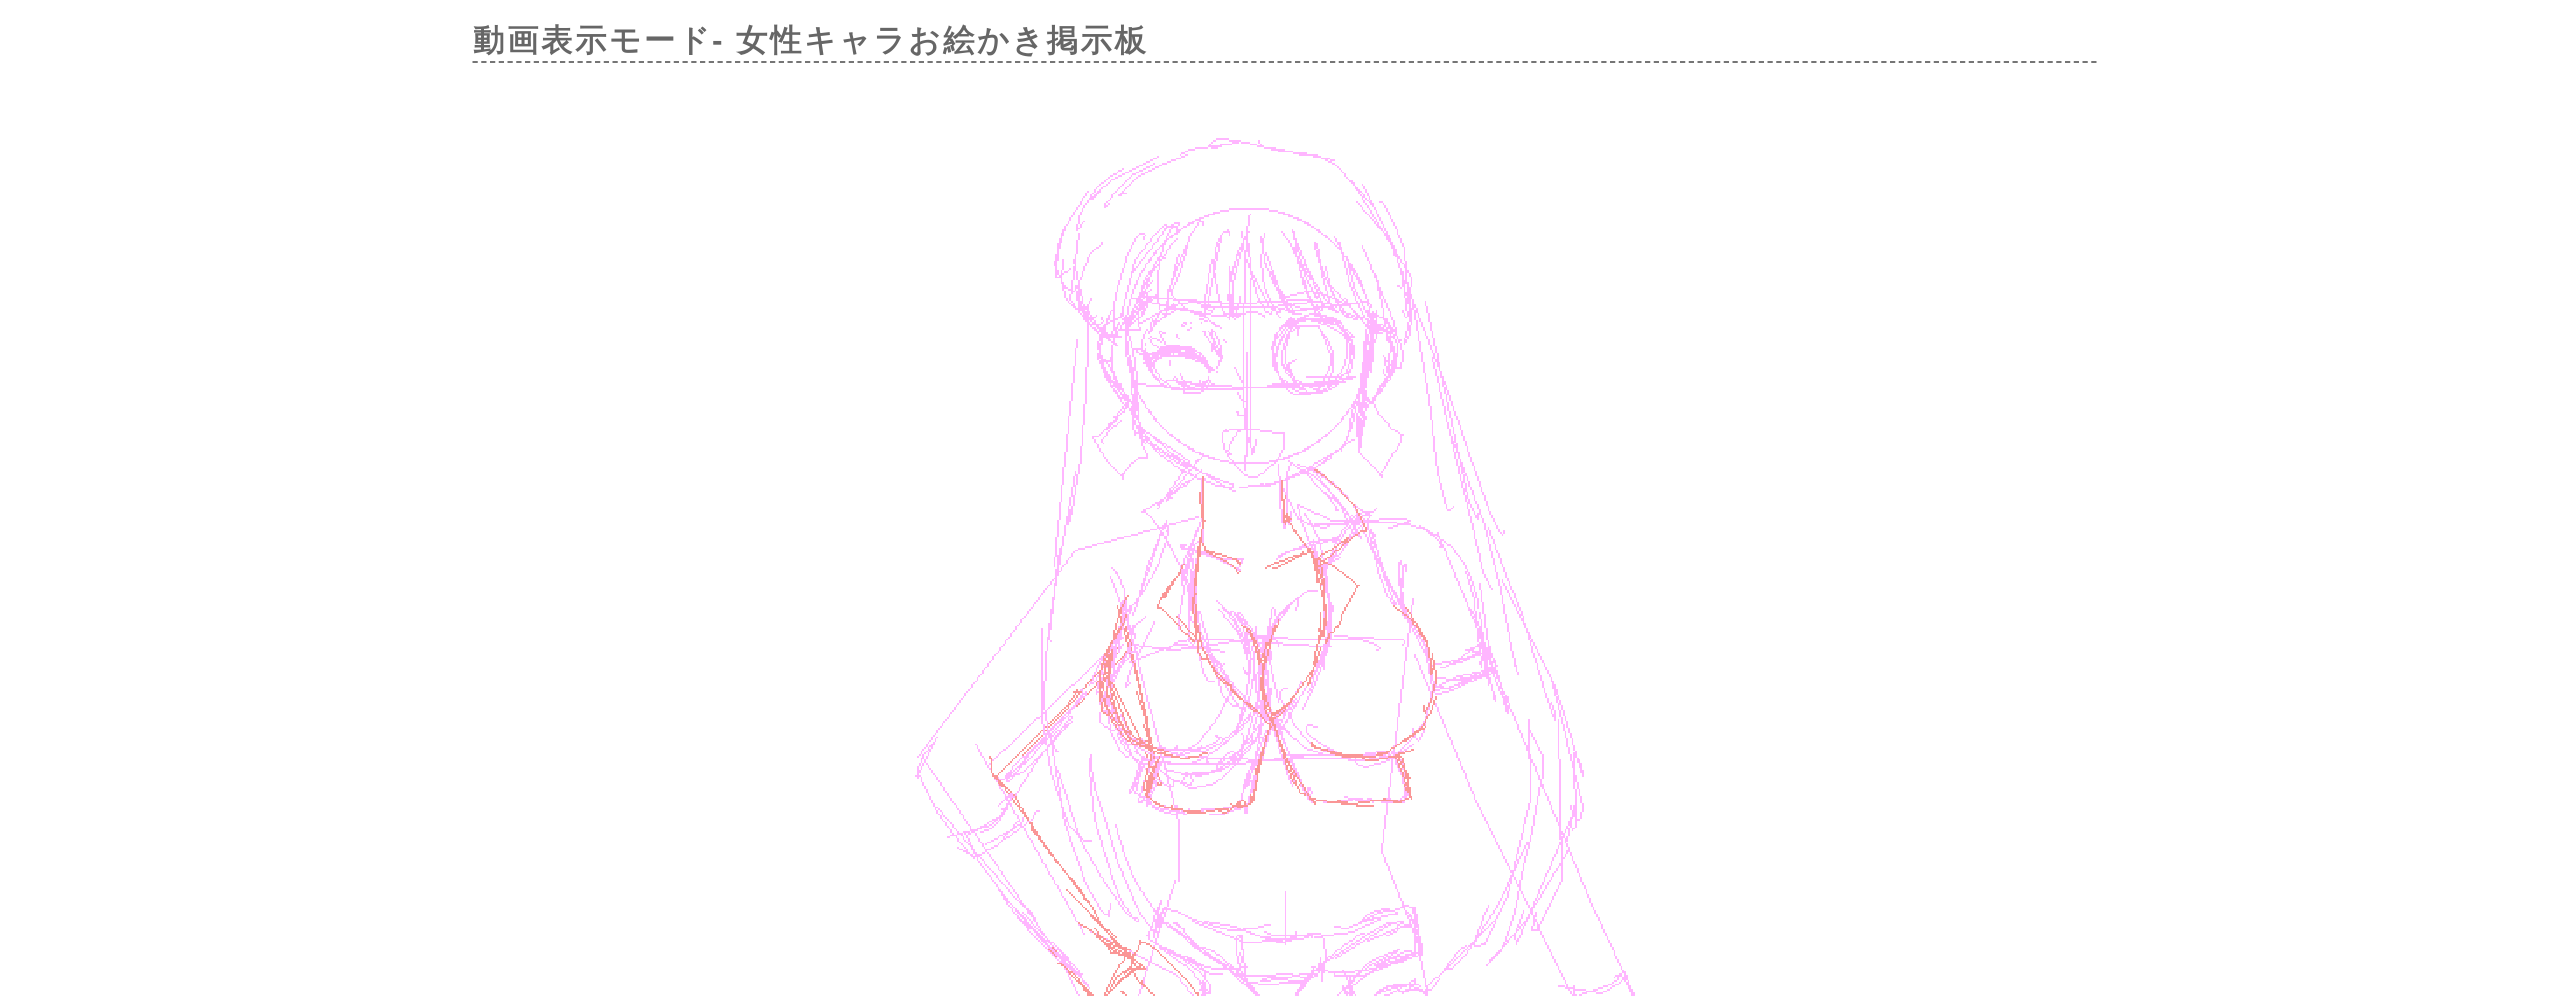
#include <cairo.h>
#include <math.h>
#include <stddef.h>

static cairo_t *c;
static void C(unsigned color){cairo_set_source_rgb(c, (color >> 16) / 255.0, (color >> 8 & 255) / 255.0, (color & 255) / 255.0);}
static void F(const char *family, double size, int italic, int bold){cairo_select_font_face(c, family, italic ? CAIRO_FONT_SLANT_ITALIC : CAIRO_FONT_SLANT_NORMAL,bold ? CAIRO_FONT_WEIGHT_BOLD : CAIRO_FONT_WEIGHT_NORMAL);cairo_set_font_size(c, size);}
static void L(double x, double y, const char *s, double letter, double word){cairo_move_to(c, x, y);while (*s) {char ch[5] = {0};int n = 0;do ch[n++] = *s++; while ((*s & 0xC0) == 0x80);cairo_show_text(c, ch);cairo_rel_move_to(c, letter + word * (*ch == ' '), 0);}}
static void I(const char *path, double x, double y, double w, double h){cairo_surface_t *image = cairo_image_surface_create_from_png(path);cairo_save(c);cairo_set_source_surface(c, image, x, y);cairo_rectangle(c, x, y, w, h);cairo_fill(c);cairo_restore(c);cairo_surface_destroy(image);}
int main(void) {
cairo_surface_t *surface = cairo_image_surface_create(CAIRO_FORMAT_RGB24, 2568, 996);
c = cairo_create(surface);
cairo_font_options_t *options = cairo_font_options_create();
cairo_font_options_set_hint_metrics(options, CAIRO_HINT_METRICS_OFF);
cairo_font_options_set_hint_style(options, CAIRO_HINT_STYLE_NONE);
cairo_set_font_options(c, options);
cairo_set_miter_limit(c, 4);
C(0xffffff);
cairo_paint(c);
cairo_new_path(c);
cairo_move_to(c,472.5,62);
cairo_line_to(c,2096.5,62);
C(0x666666);
cairo_set_line_width(c,1.8);
cairo_set_dash(c,(double[]){5.25,3.5},2,0);
cairo_stroke(c);
F("WenQuanYi Zen Hei",31.5,0,1);
L(473,51,"動画表示モード",2.5,0);
F("Liberation Sans",31.5,0,1);
L(712,51,"-",2.5,0);
F("WenQuanYi Zen Hei",31.5,0,1);
L(736,51,"女性キャラお絵かき掲示板",2.5,0);
I("1.png",915,138,720,858);
cairo_surface_write_to_png(surface, "o.png");
cairo_font_options_destroy(options);
cairo_destroy(c);
cairo_surface_destroy(surface);
return 0;
}
